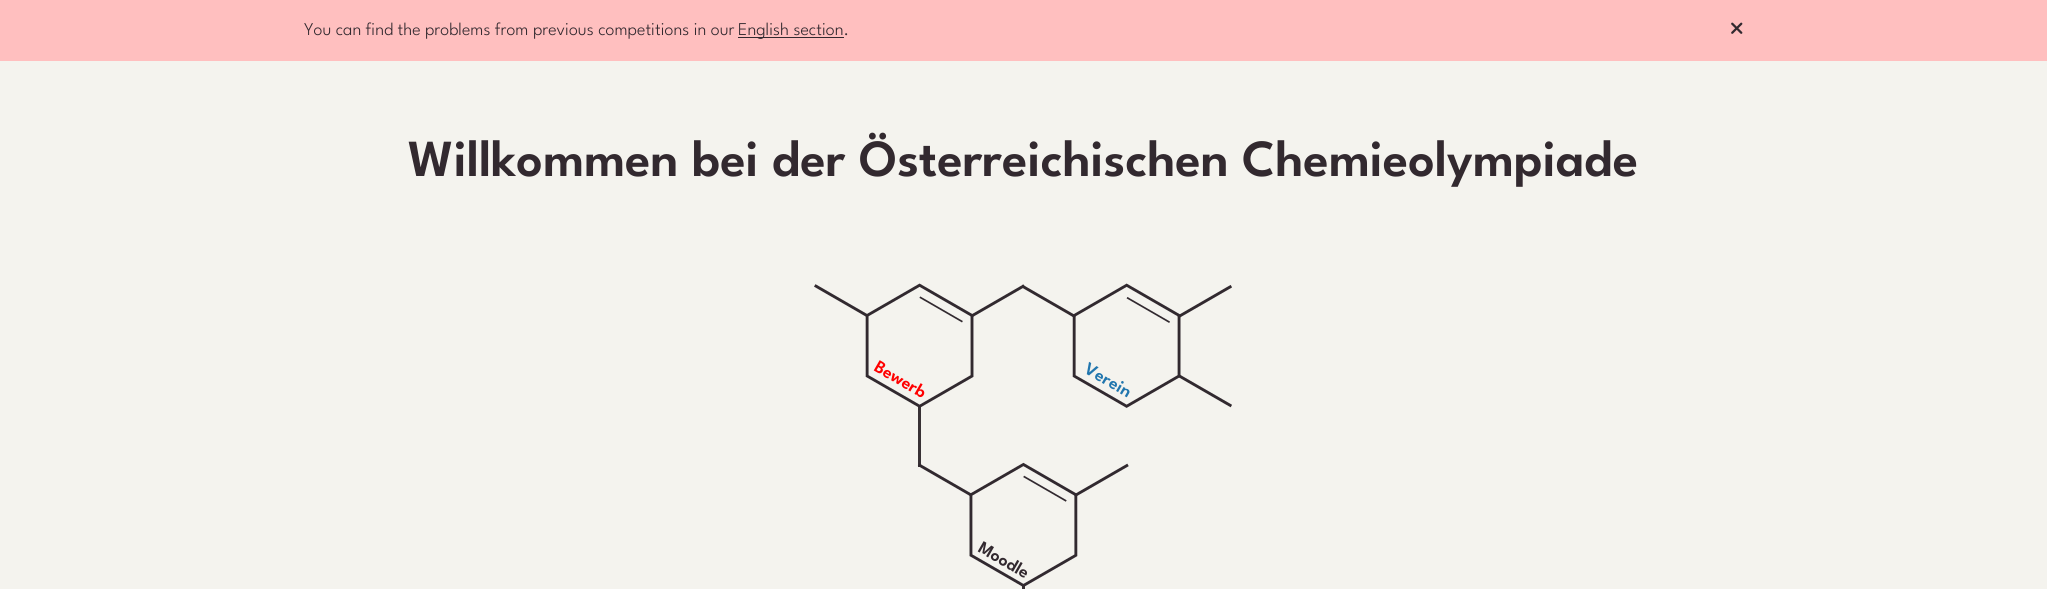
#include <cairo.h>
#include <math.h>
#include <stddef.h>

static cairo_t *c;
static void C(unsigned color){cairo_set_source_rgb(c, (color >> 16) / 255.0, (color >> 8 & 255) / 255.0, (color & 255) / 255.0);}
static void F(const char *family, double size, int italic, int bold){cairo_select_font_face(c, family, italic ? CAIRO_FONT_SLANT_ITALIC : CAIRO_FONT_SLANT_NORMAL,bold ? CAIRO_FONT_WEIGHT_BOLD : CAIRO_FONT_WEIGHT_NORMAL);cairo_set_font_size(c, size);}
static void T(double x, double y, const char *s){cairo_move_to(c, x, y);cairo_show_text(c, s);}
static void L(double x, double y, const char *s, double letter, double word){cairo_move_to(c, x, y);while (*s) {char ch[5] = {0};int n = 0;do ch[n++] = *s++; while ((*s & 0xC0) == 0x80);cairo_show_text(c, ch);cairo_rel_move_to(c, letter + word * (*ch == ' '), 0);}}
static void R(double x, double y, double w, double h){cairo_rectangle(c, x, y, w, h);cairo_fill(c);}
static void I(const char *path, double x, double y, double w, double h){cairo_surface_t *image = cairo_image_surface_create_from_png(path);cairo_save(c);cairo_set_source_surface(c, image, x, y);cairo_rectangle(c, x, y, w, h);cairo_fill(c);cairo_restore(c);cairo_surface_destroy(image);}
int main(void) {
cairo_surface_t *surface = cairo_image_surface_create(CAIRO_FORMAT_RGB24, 2047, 589);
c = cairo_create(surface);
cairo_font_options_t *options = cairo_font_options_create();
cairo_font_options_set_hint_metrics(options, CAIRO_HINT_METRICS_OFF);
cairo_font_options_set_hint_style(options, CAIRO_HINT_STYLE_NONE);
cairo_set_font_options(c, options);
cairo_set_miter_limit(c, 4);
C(0xf4f3ee);
cairo_paint(c);
C(0xffbfbf);
R(0,0,2047,61);
F("League Spartan Thin",18,0,0);
C(0x32292f);
T(304,35,"You can find the problems from previous competitions in our");
R(738,37,106,1);
T(738,35,"English section.");
I("1.png",1731,22,12,12);
F("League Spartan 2 Thin",52,0,0);
T(408,176,"Willkommen bei der Österreichischen Chemieolympiade");
I("2.png",814,283,418,306);
F("League Spartan 2 Thin",18,0,0);
C(0xff0000);
cairo_save(c);
cairo_translate(c,873,370);
cairo_rotate(c,30 * M_PI / 180);
T(0,0,"Bewerb");
cairo_restore(c);
C(0x2176ae);
cairo_save(c);
cairo_translate(c,1083,372);
cairo_rotate(c,30 * M_PI / 180);
L(0,0,"Verein",.25,0);
cairo_restore(c);
C(0x32292f);
cairo_save(c);
cairo_translate(c,977,551);
cairo_rotate(c,30 * M_PI / 180);
T(0,0,"Moodle");
cairo_restore(c);
cairo_surface_write_to_png(surface, "o.png");
cairo_font_options_destroy(options);
cairo_destroy(c);
cairo_surface_destroy(surface);
return 0;
}
